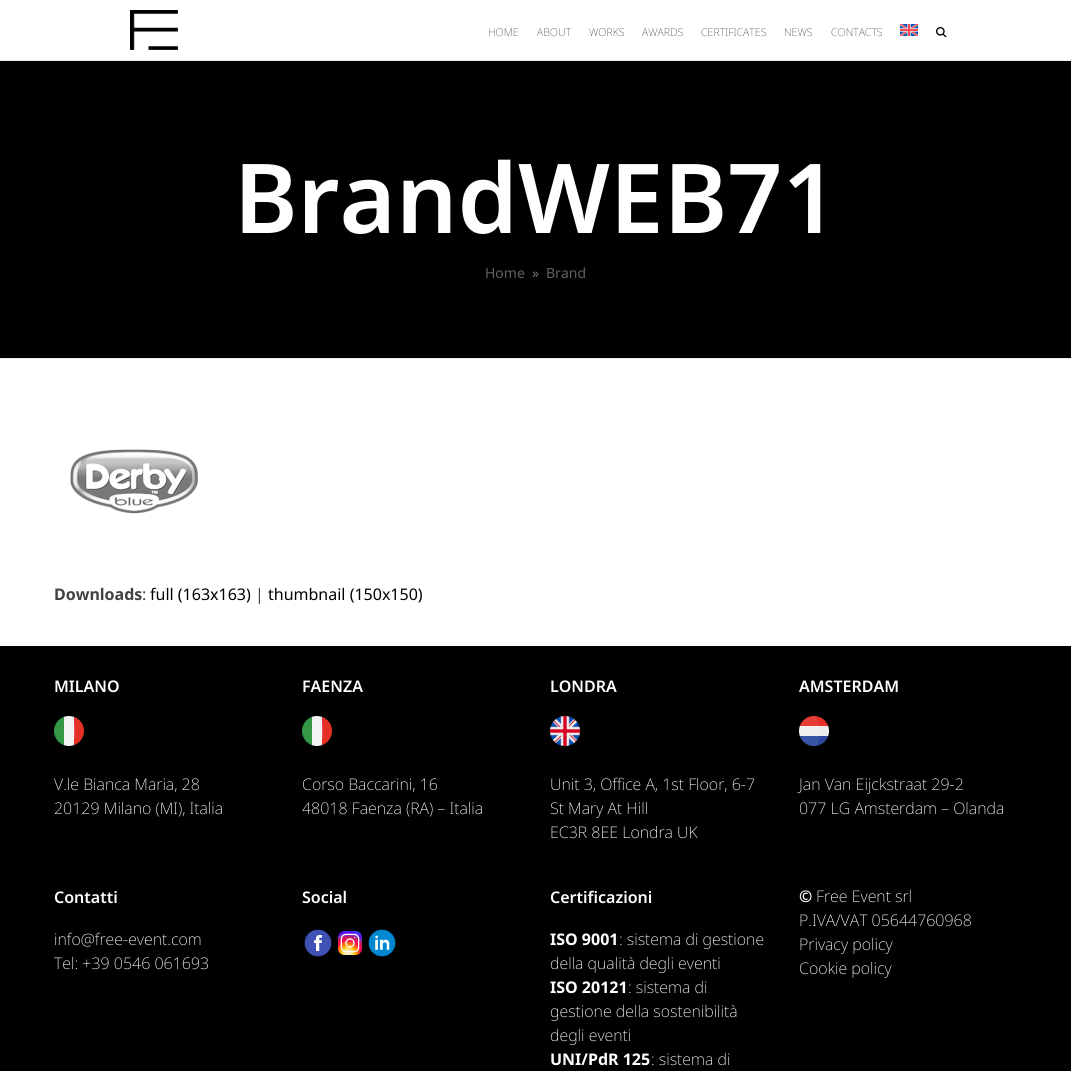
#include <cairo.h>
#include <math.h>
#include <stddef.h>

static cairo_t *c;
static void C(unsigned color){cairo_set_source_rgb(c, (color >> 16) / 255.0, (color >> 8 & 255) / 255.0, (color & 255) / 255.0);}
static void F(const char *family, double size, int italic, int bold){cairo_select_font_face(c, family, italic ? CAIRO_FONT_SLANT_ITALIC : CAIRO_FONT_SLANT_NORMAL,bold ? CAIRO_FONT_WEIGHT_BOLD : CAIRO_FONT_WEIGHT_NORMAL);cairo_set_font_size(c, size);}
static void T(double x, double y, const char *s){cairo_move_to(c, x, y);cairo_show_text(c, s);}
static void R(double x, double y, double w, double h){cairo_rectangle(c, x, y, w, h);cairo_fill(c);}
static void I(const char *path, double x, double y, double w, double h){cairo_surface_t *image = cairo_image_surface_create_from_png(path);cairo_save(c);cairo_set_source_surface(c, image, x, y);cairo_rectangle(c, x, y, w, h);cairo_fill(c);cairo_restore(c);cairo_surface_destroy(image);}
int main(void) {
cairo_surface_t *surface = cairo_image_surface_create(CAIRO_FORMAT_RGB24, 1071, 1071);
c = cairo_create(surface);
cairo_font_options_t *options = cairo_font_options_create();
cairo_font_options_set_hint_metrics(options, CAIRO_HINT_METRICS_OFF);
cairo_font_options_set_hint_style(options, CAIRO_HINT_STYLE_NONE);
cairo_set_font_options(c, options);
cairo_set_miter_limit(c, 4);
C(0xffffff);
cairo_paint(c);
I("1.png",130,10,48,40);
F("Noto Sans Thin",10.75,0,0);
C(0x000000);
T(488,36,"HOME");
T(537,36,"ABOUT");
T(589,36,"WORKS");
T(642,36,"AWARDS");
T(701,36,"CERTIFICATES");
T(784,36,"NEWS");
T(831,36,"CONTACTS");
I("2.png",900,24,18,12);
I("3.png",936,27,11,10);
R(0,61,1071,297);
C(0xeeeeee);
R(0,60,1071,1);
R(0,358,1071,1);
F("Noto Sans SemiBold",96.5,0,0);
C(0xffffff);
T(234,233,"BrandWEB71");
F("Noto Sans",14,0,0);
C(0x616161);
T(485,278,"Home");
C(0x757575);
T(532,278,"»");
C(0x616161);
T(546,278,"Brand");
I("4.png",70,449,128,65);
F("Noto Sans",16,0,1);
C(0x424242);
T(54,600,"Downloads");
F("Noto Sans",16,0,0);
T(142,600,":");
C(0x000000);
T(150,600,"full (163x163)");
C(0x424242);
T(255,600,"|");
C(0x000000);
T(268,600,"thumbnail (150x150)");
R(0,646,1071,425);
F("Noto Sans SemiBold",16,0,0);
C(0xffffff);
T(54,692,"MILANO");
I("5.png",54,716,30,30);
F("Noto Sans ExtraLight",16,0,0);
T(54,790,"V.le Bianca Maria, 28");
T(54,814,"20129 Milano (MI), Italia");
F("Noto Sans SemiBold",16,0,0);
T(302,692,"FAENZA");
I("5.png",302,716,30,30);
F("Noto Sans ExtraLight",16,0,0);
T(302,790,"Corso Baccarini, 16");
T(302,814,"48018 Faenza (RA) – Italia");
F("Noto Sans SemiBold",16,0,0);
T(550,692,"LONDRA");
I("6.png",550,716,30,30);
F("Noto Sans ExtraLight",16,0,0);
T(550,790,"Unit 3, Office A, 1st Floor, 6-7");
T(550,814,"St Mary At Hill");
T(550,838,"EC3R 8EE Londra UK");
F("Noto Sans SemiBold",16,0,0);
T(799,692,"AMSTERDAM");
I("7.png",799,716,30,30);
F("Noto Sans ExtraLight",16,0,0);
T(799,790,"Jan Van Eijckstraat 29-2");
T(799,814,"077 LG Amsterdam – Olanda");
F("Noto Sans SemiBold",16,0,0);
T(54,903,"Contatti");
F("Noto Sans ExtraLight",16,0,0);
T(54,945,"info@free-event.com");
T(54,969,"Tel: +39 0546 061693");
F("Noto Sans SemiBold",16,0,0);
T(302,903,"Social");
I("8.png",304,929,28,28);
I("9.png",338,931,24,24);
I("10.png",368,929,28,28);
T(550,903,"Certificazioni");
F("Noto Sans",16,0,1);
T(550,945,"ISO 9001");
F("Noto Sans ExtraLight",16,0,0);
T(619,945,": sistema di gestione");
T(550,969,"della qualità degli eventi");
F("Noto Sans",16,0,1);
T(550,993,"ISO 20121");
F("Noto Sans ExtraLight",16,0,0);
T(628,993,": sistema di");
T(550,1017,"gestione della sostenibilità");
T(550,1041,"degli eventi");
F("Noto Sans",16,0,1);
T(550,1065,"UNI/PdR 125");
F("Noto Sans ExtraLight",16,0,0);
T(651,1065,": sistema di");
F("Noto Sans",16,0,1);
T(799,902,"©");
F("Noto Sans ExtraLight",16,0,0);
T(816,902,"Free Event srl");
T(799,926,"P.IVA/VAT 05644760968");
T(799,950,"Privacy policy");
T(799,974,"Cookie policy");
cairo_surface_write_to_png(surface, "o.png");
cairo_font_options_destroy(options);
cairo_destroy(c);
cairo_surface_destroy(surface);
return 0;
}
